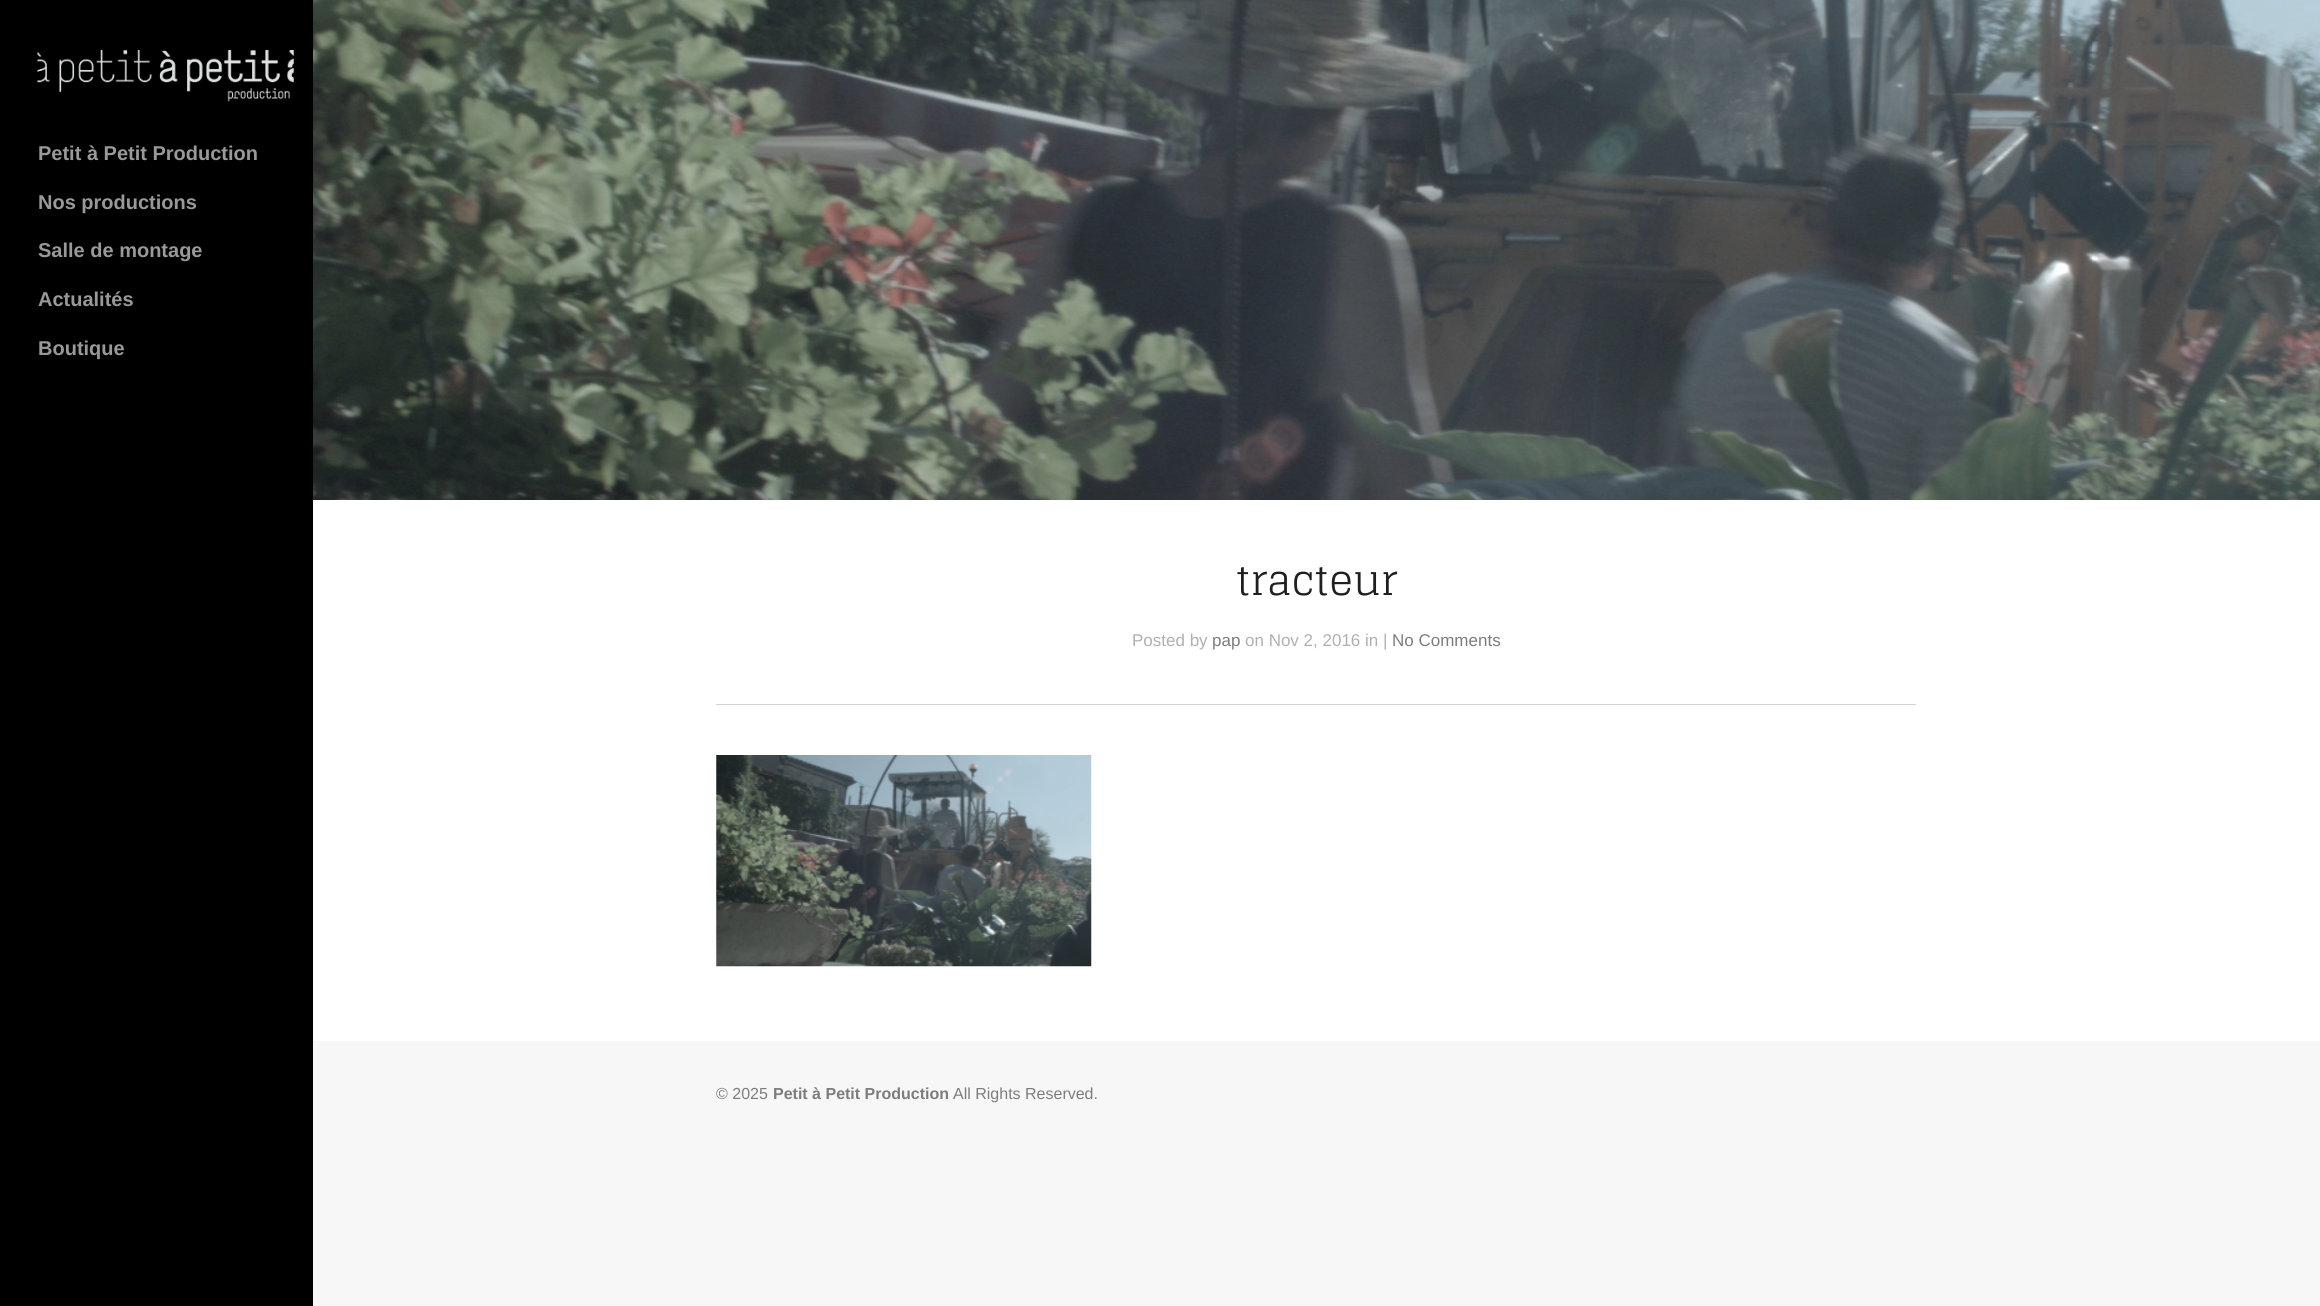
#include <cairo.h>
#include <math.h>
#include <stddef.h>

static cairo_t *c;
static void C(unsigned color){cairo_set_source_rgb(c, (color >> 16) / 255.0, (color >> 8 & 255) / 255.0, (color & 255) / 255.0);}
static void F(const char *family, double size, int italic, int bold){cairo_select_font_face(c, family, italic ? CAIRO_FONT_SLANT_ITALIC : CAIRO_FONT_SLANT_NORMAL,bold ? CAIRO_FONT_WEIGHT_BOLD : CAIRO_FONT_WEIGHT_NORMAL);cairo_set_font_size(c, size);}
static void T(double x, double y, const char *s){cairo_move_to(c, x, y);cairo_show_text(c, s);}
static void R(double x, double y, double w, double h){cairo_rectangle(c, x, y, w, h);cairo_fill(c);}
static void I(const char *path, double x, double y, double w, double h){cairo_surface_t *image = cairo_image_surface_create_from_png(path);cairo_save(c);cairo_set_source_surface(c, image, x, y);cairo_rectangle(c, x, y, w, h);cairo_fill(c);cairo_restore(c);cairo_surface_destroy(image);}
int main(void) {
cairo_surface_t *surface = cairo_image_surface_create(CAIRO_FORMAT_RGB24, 2320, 1306);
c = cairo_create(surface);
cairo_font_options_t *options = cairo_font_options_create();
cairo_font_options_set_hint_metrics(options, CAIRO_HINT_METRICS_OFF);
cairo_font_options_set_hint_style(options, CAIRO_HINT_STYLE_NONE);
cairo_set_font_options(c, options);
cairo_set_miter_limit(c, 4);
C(0xf7f7f7);
cairo_paint(c);
C(0x000000);
R(0,0,313,1306);
I("1.png",37,50,257,52);
F("Liberation Sans",20,0,1);
C(0x999999);
T(38,160,"Petit à Petit Production");
T(38,209,"Nos productions");
T(38,257,"Salle de montage");
T(38,306,"Actualités");
T(38,355,"Boutique");
C(0xffffff);
R(313,500,2007,541);
I("2.png",313,0,2007,500);
C(0xd3d3d3);
R(716,704,1200,1);
F("Glegoo",40,0,0);
C(0x1f1f1f);
T(1236,595,"tracteur");
F("Liberation Sans",17,0,0);
C(0xb0b0ad);
T(1132,646,"Posted by");
C(0x7d7d7b);
T(1212,646,"pap");
C(0xb0b0ad);
T(1245,646,"on Nov 2, 2016 in |");
C(0x7d7d7b);
T(1392,646,"No Comments");
I("3.png",716,755,376,212);
F("Liberation Sans",16,0,0);
T(716,1099,"© 2025");
F("Liberation Sans",16,0,1);
T(773,1099,"Petit à Petit Production");
F("Liberation Sans",16,0,0);
T(953,1099,"All Rights Reserved.");
cairo_surface_write_to_png(surface, "o.png");
cairo_font_options_destroy(options);
cairo_destroy(c);
cairo_surface_destroy(surface);
return 0;
}
